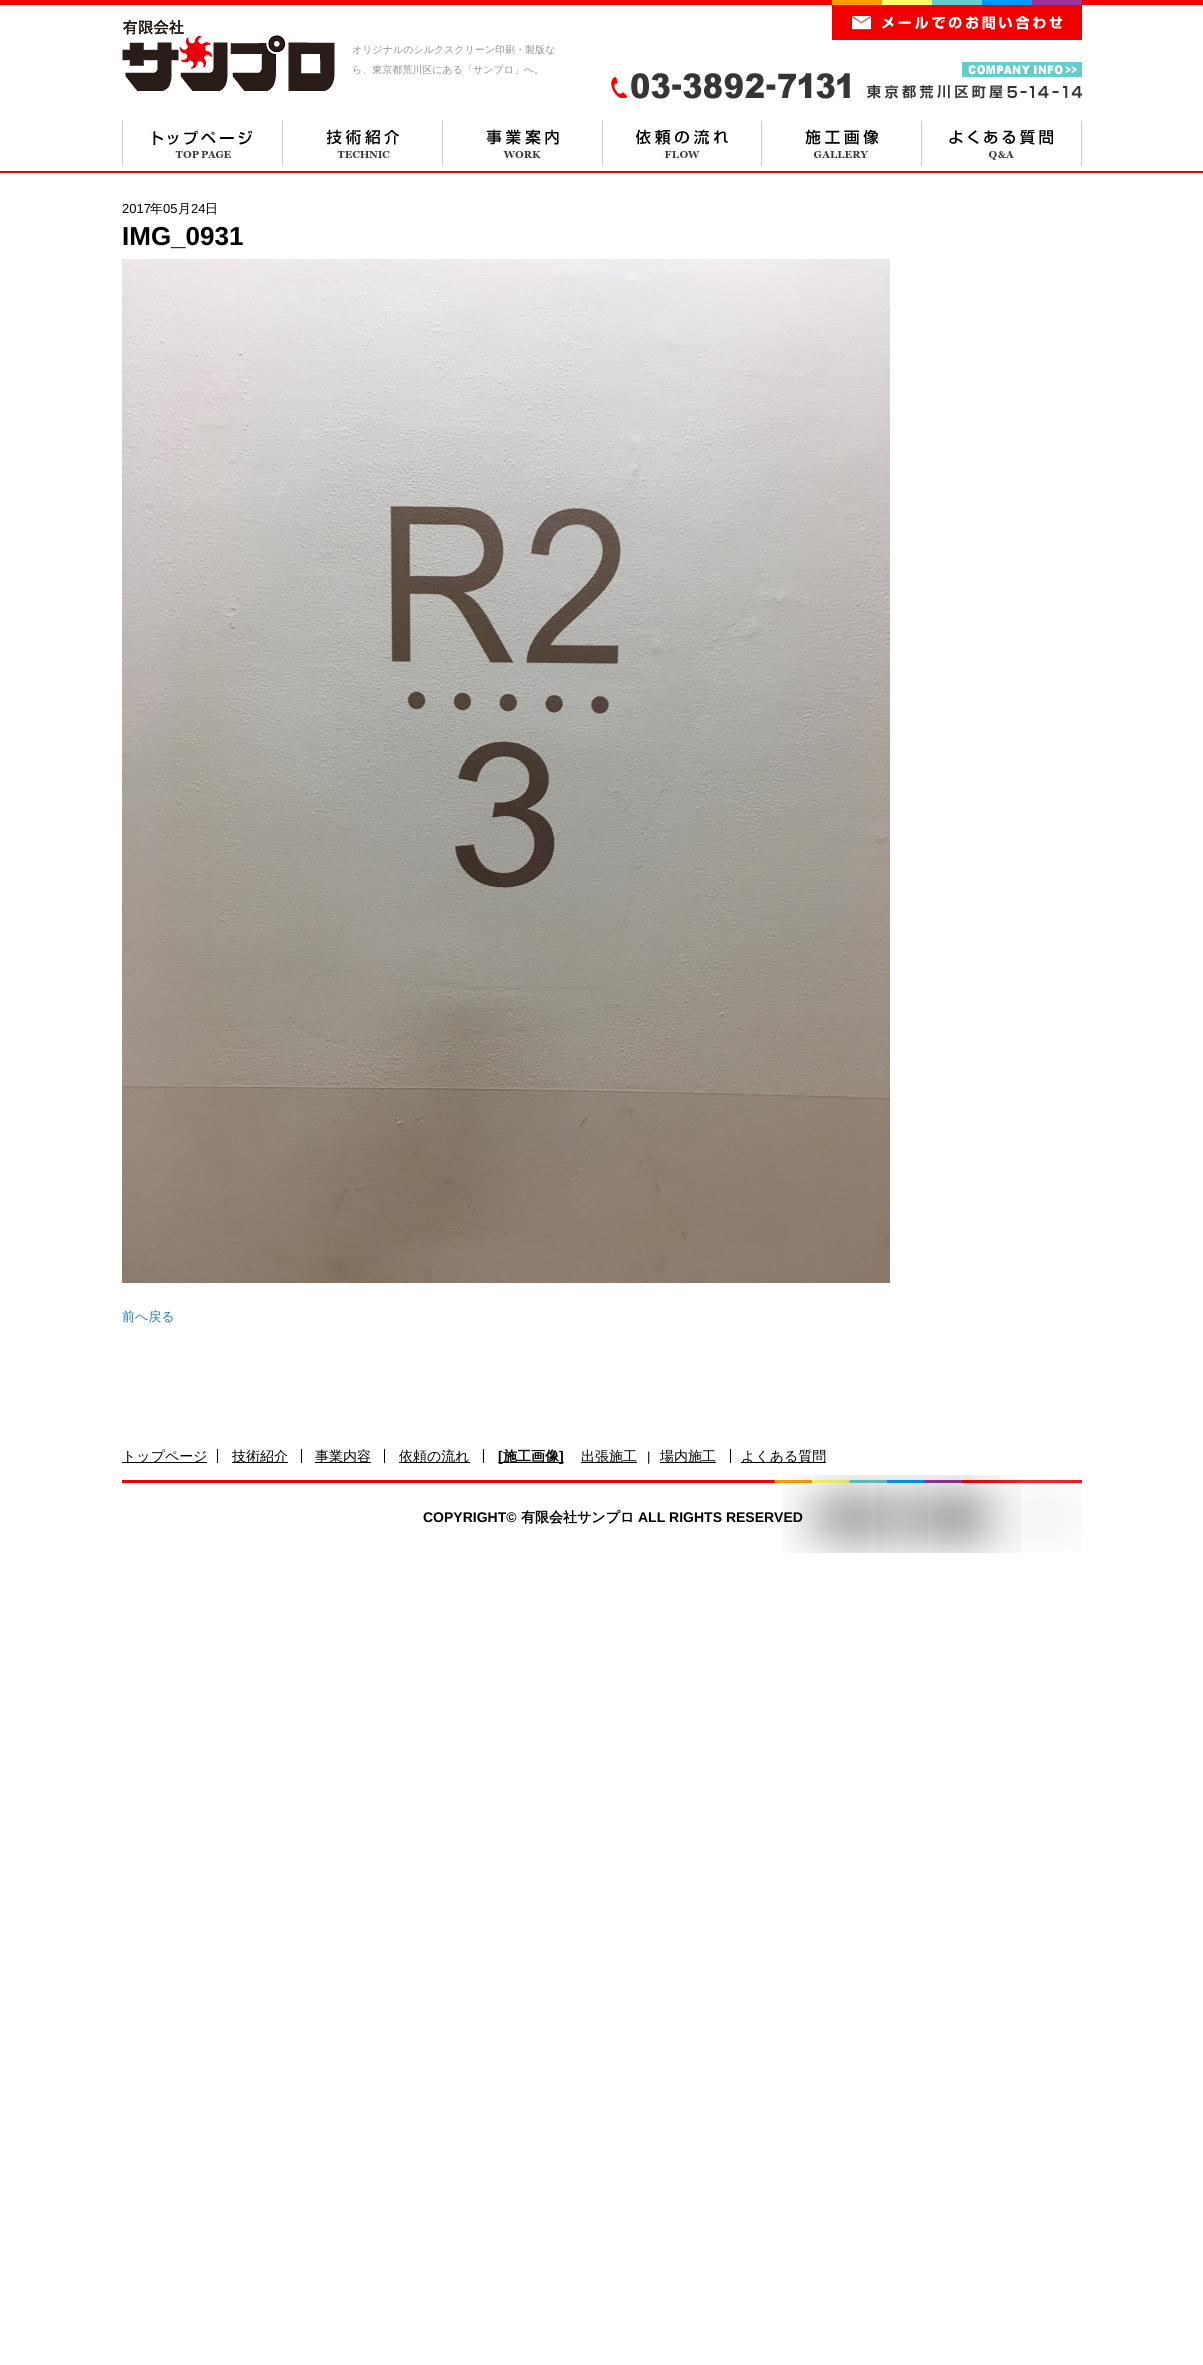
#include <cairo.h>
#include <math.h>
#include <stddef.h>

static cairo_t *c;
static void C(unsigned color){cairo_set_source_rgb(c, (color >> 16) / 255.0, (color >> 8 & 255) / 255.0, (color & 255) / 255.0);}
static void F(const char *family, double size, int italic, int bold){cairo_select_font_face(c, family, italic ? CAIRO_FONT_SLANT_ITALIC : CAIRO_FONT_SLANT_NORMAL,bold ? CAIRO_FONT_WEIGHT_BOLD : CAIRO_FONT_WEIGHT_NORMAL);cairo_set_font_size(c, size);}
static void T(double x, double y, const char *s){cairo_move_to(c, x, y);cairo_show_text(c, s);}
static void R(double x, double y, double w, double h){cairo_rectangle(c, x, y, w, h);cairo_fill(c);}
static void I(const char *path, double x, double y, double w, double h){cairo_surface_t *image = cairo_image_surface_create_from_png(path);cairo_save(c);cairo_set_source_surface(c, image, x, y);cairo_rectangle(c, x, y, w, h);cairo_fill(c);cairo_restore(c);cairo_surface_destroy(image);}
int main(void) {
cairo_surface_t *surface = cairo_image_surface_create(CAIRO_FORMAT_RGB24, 1203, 2365);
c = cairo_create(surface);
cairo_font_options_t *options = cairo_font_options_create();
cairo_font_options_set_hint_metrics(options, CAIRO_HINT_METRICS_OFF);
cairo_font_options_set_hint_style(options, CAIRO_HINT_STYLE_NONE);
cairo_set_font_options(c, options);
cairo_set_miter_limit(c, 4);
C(0xffffff);
cairo_paint(c);
C(0xf00001);
R(0,171,1203,2);
R(0,0,1203,5);
I("1.png",122,20,213,71);
F("WenQuanYi Zen Hei Medium",10,0,0);
C(0x909090);
T(352,53,"オリジナルのシルクスクリーン印刷・製版な");
T(352,73,"ら、東京都荒川区にある「サンプロ」へ。");
I("2.png",832,0,250,40);
I("3.png",611,73,240,26);
I("4.png",962,62,120,15);
I("5.png",861,85,221,14);
I("6.png",122,121,135,45);
I("7.png",282,121,118,45);
I("8.png",442,121,117,45);
I("9.png",602,121,160,45);
I("10.png",805,121,117,45);
I("11.png",949,121,133,45);
F("Liberation Sans",13,0,0);
C(0x000000);
T(122,213,"2017");
F("WenQuanYi Zen Hei Medium",13,0,0);
T(150,213,"年");
F("Liberation Sans",13,0,0);
T(163,213,"05");
F("WenQuanYi Zen Hei Medium",13,0,0);
T(178,213,"月");
F("Liberation Sans",13,0,0);
T(191,213,"24");
F("WenQuanYi Zen Hei Medium",13,0,0);
T(205,213,"日");
F("Liberation Sans",26,0,1);
T(122,245,"IMG_0931");
I("12.png",122,259,768,1024);
F("WenQuanYi Zen Hei Medium",13,0,0);
C(0x1f7bb6);
T(122,1321,"前へ戻る");
I("13.png",122,1480,960,3);
C(0x000000);
R(217,1449,1,14);
R(122,1462,85,1);
F("WenQuanYi Zen Hei Medium",14,0,0);
T(122,1461,"トップページ");
R(301,1449,1,14);
R(232,1462,56,1);
T(232,1461,"技術紹介");
R(384,1449,1,14);
R(315,1462,56,1);
T(315,1461,"事業内容");
R(483,1449,1,14);
R(399,1462,71,1);
T(399,1461,"依頼の流れ");
R(498,1462,66,1);
F("Liberation Sans",14,0,1);
T(498,1461,"[");
F("WenQuanYi Zen Hei",14,0,1);
T(503,1461,"施工画像");
F("Liberation Sans",14,0,1);
T(559,1461,"]");
R(581,1462,56,1);
F("WenQuanYi Zen Hei Medium",14,0,0);
T(581,1461,"出張施工");
F("Liberation Sans",13,0,0);
T(647,1461,"|");
R(660,1462,56,1);
F("WenQuanYi Zen Hei Medium",14,0,0);
T(660,1461,"場内施工");
R(730,1449,1,14);
R(741,1462,85,1);
T(741,1461,"よくある質問");
F("Liberation Sans",14,0,1);
T(423,1522,"COPYRIGHT©");
F("WenQuanYi Zen Hei",14,0,1);
T(521,1522,"有限会社サンプロ");
F("Liberation Sans",14,0,1);
T(638,1522,"ALL RIGHTS RESERVED");
I("14.png",782,1475,146,78);
I("15.png",876,1475,146,78);
I("16.png",971,1479,111,74);
cairo_surface_write_to_png(surface, "o.png");
cairo_font_options_destroy(options);
cairo_destroy(c);
cairo_surface_destroy(surface);
return 0;
}
